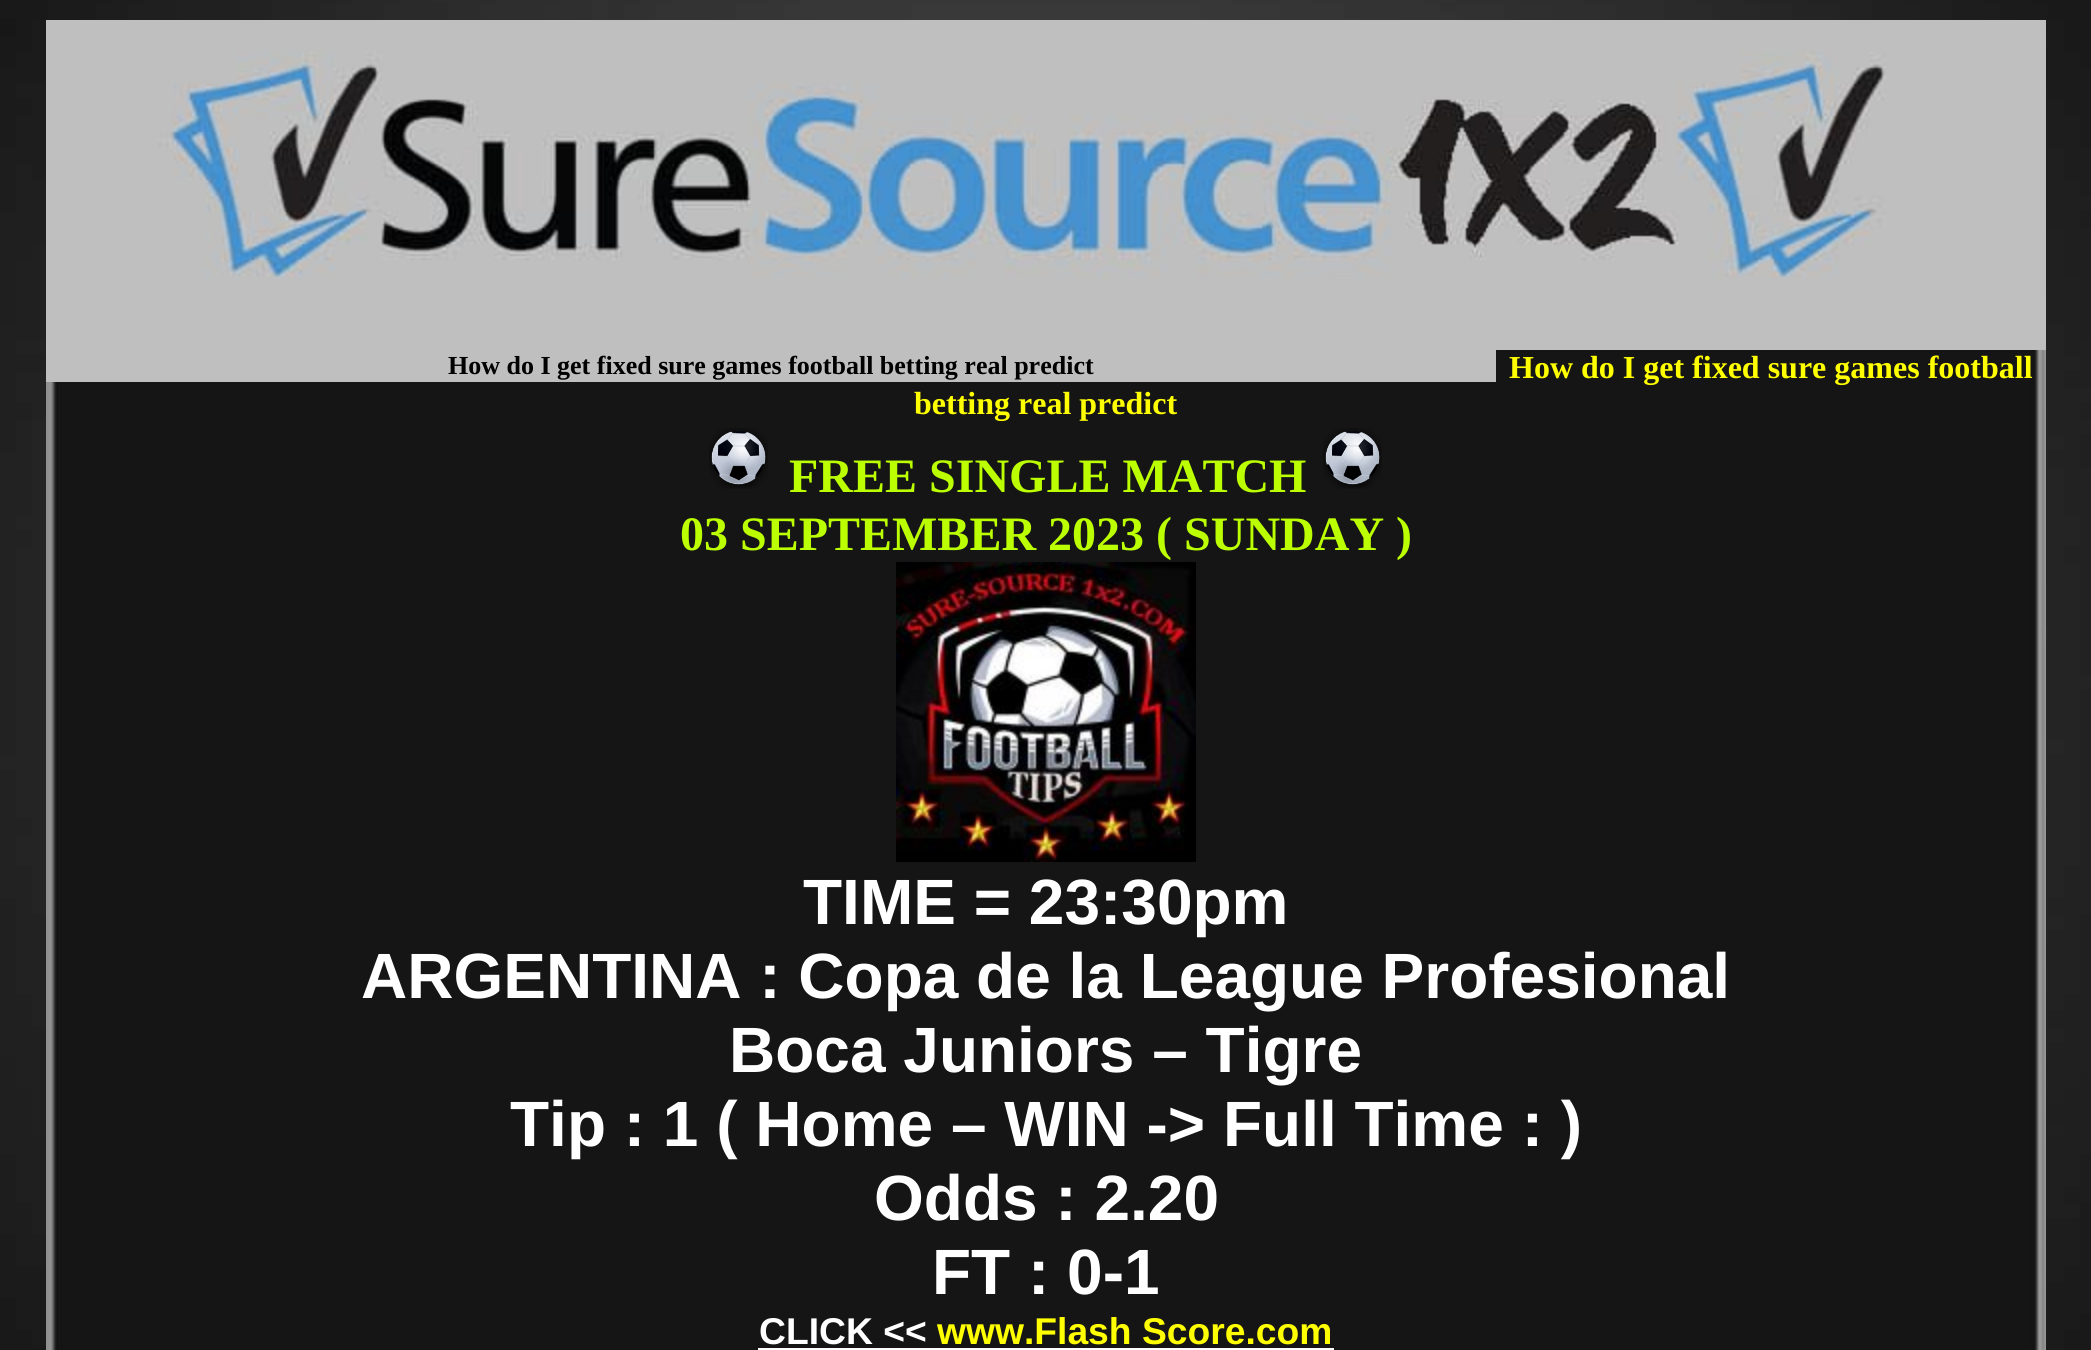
#include <cairo.h>
#include <math.h>
#include <stddef.h>

static cairo_t *c;
static void C(unsigned color){cairo_set_source_rgb(c, (color >> 16) / 255.0, (color >> 8 & 255) / 255.0, (color & 255) / 255.0);}
static void F(const char *family, double size, int italic, int bold){cairo_select_font_face(c, family, italic ? CAIRO_FONT_SLANT_ITALIC : CAIRO_FONT_SLANT_NORMAL,bold ? CAIRO_FONT_WEIGHT_BOLD : CAIRO_FONT_WEIGHT_NORMAL);cairo_set_font_size(c, size);}
static void T(double x, double y, const char *s){cairo_move_to(c, x, y);cairo_show_text(c, s);}
static void R(double x, double y, double w, double h){cairo_rectangle(c, x, y, w, h);cairo_fill(c);}
static void I(const char *path, double x, double y, double w, double h){cairo_surface_t *image = cairo_image_surface_create_from_png(path);cairo_save(c);cairo_set_source_surface(c, image, x, y);cairo_rectangle(c, x, y, w, h);cairo_fill(c);cairo_restore(c);cairo_surface_destroy(image);}
int main(void) {
cairo_surface_t *surface = cairo_image_surface_create(CAIRO_FORMAT_RGB24, 2091, 1350);
c = cairo_create(surface);
cairo_font_options_t *options = cairo_font_options_create();
cairo_font_options_set_hint_metrics(options, CAIRO_HINT_METRICS_OFF);
cairo_font_options_set_hint_style(options, CAIRO_HINT_STYLE_NONE);
cairo_set_font_options(c, options);
cairo_set_miter_limit(c, 4);
C(0xffffff);
cairo_paint(c);
I("1.png",0,0,2091,1350);
I("2.png",46,20,2000,330);
I("3.png",46,350,2000,1000);
C(0xbfbfbf);
R(46,350,1450,32);
F("Liberation Serif",26,0,1);
C(0x000000);
T(448,374,"How do I get fixed sure games football betting real predict");
F("Liberation Serif",32,0,1);
C(0xffff00);
T(1509,378,"How do I get fixed sure games football");
T(914,414,"betting real predict");
I("4.png",709,428,59,61);
F("Liberation Serif",48,0,1);
C(0xbbff00);
T(789,492,"FREE SINGLE MATCH");
I("5.png",1323,428,59,61);
T(680,550,"03 SEPTEMBER 2023 ( SUNDAY )");
I("6.png",896,562,300,300);
F("Liberation Sans",64,0,1);
C(0xffffff);
T(803,924,"TIME = 23:30pm");
T(361,998,"ARGENTINA : Copa de la League Profesional");
T(729,1072,"Boca Juniors – Tigre");
T(510,1146,"Tip : 1 ( Home – WIN -> Full Time : )");
T(874,1220,"Odds : 2.20");
T(932,1294,"FT : 0-1");
F("Liberation Sans",37.25,0,1);
T(759,1344,"CLICK <<");
R(758,1348,576,2);
C(0xffff00);
T(937,1344,"www.Flash Score.com");
cairo_surface_write_to_png(surface, "o.png");
cairo_font_options_destroy(options);
cairo_destroy(c);
cairo_surface_destroy(surface);
return 0;
}
